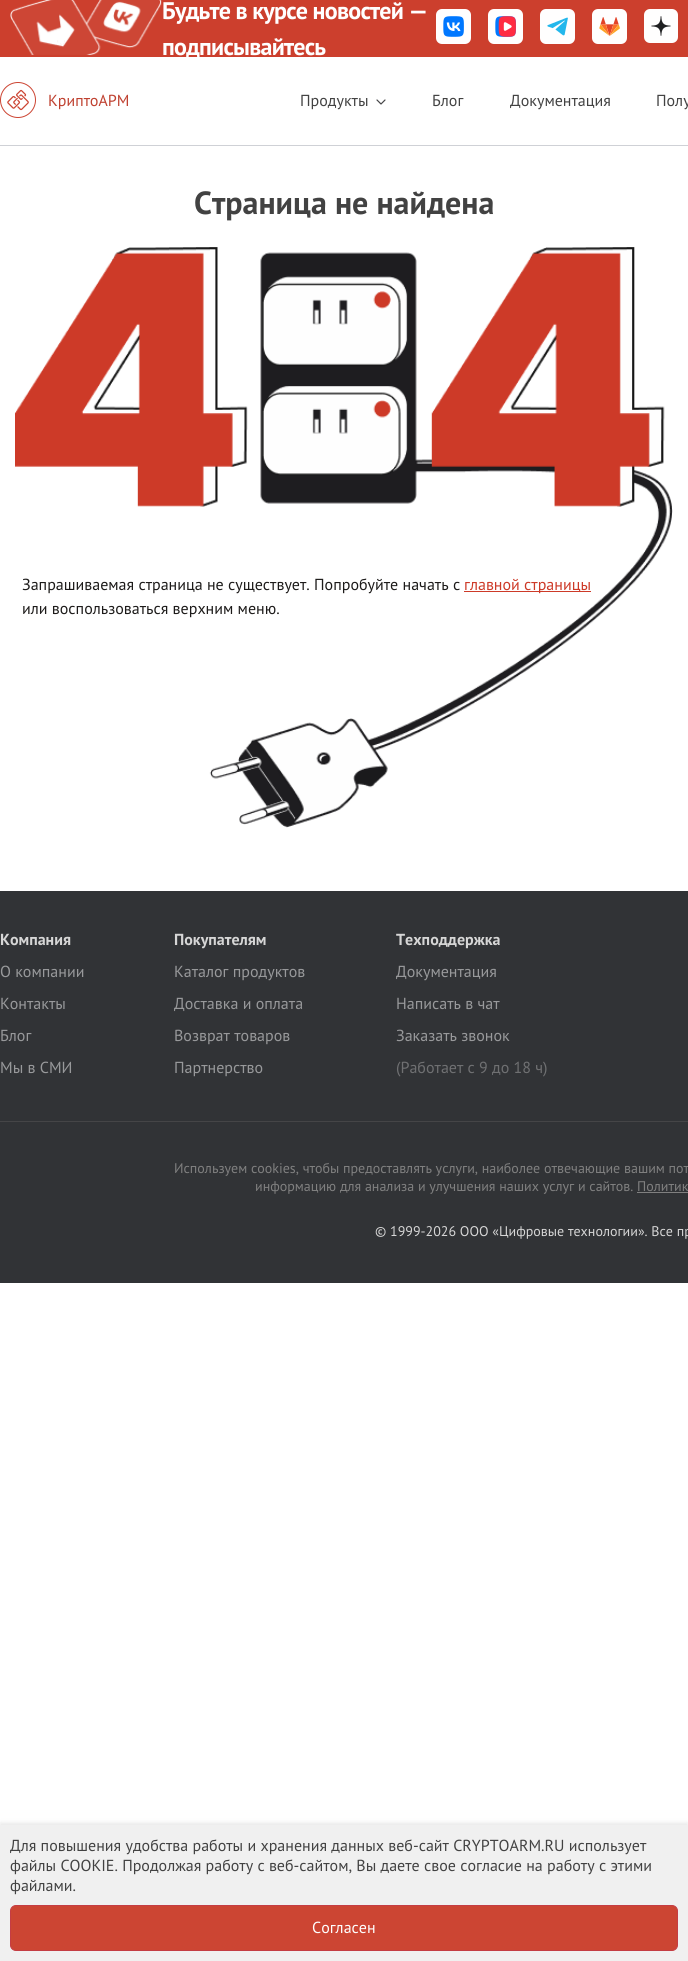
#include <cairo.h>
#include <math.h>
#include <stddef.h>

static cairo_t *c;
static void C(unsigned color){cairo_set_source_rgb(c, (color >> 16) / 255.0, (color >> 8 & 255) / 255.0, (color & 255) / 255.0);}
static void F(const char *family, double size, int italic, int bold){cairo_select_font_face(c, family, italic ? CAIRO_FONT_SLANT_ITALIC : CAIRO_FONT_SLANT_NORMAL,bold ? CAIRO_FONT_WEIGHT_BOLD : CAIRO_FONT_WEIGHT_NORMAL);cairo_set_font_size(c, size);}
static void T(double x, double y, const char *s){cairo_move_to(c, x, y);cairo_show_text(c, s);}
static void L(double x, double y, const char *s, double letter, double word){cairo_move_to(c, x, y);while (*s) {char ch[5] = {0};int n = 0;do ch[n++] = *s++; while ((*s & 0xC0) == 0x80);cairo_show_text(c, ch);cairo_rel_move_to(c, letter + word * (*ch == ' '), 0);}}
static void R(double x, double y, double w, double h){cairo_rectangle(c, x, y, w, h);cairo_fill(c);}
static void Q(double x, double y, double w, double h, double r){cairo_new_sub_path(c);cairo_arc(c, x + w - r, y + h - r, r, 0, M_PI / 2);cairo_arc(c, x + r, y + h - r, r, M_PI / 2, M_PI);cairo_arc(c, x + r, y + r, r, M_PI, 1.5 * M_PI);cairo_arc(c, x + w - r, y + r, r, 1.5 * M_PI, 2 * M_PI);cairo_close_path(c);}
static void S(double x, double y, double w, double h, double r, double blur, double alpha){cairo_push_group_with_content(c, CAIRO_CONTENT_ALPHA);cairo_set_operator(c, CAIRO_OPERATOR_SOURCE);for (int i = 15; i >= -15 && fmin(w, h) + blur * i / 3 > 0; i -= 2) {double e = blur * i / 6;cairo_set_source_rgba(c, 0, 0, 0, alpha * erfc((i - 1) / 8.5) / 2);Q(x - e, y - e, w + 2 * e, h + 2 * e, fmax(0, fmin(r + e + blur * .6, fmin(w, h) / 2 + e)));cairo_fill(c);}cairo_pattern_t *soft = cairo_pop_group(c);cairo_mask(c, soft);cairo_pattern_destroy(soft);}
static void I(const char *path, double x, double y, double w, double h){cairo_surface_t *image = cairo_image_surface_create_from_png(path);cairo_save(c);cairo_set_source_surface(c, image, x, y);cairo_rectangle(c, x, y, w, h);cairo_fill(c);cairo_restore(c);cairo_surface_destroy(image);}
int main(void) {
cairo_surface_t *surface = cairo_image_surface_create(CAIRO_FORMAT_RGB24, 688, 1961);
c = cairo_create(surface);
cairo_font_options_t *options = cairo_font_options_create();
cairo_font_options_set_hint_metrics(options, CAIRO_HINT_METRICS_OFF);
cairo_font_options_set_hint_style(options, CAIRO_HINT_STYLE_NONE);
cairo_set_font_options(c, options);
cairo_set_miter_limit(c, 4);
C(0xffffff);
cairo_paint(c);
C(0xcfd1d6);
R(0,145,688,1);
C(0xcc3f2d);
R(0,0,688,57);
I("1.png",10,0,152,55);
F("PT Sans",24,0,1);
C(0xffffff);
L(162,19,"Будьте в курсе новостей —",-.75,0);
L(162,55,"подписывайтесь",-.75,0);
I("2.png",436,9,35,35);
I("3.png",488,9,35,35);
I("4.png",540,9,35,35);
I("5.png",592,9,35,35);
I("6.png",644,9,34,34);
I("7.png",0,82,128,36);
F("PT Sans",16,0,0);
C(0x424242);
T(300,106,"Продукты");
cairo_new_path(c);
cairo_move_to(c,377,100);
cairo_line_to(c,381,104);
cairo_line_to(c,385,100);
C(0x454547);
cairo_set_line_width(c,1.2);
cairo_set_line_cap(c,CAIRO_LINE_CAP_ROUND);
cairo_set_line_join(c,CAIRO_LINE_JOIN_ROUND);
cairo_stroke(c);
C(0x424242);
T(432,106,"Блог");
T(510,106,"Документация");
T(656,106,"Полу");
F("PT Sans",32,0,1);
T(194,214,"Страница не найдена");
I("8.png",15,247,658,581);
F("PT Sans",16,0,0);
C(0x1d1b1a);
T(22,590,"Запрашиваемая страница не существует. Попробуйте начать с");
C(0xcd3a28);
R(464,591,127,1);
T(464,590,"главной страницы");
C(0x1d1b1a);
T(22,614,"или воспользоваться верхним меню.");
C(0x313336);
R(0,891,688,392);
C(0x454547);
R(0,1121,688,1);
F("PT Sans",16,0,1);
C(0xd6d6d6);
T(0,945,"Компания");
F("PT Sans",16,0,0);
C(0x98999b);
T(0,977,"О компании");
T(0,1009,"Контакты");
T(0,1041,"Блог");
T(0,1073,"Мы в СМИ");
F("PT Sans",16,0,1);
C(0xd6d6d6);
T(174,945,"Покупателям");
F("PT Sans",16,0,0);
C(0x98999b);
T(174,977,"Каталог продуктов");
T(174,1009,"Доставка и оплата");
T(174,1041,"Возврат товаров");
T(174,1073,"Партнерство");
F("PT Sans",16,0,1);
C(0xd6d6d6);
T(396,945,"Техподдержка");
F("PT Sans",16,0,0);
C(0x98999b);
T(396,977,"Документация");
T(396,1009,"Написать в чат");
T(396,1041,"Заказать звонок");
C(0x6f7072);
T(396,1073,"(Работает с 9 до 18 ч)");
F("PT Sans",14,0,0);
C(0x808080);
T(174,1173,"Используем cookies, чтобы предоставлять услуги, наиболее отвечающие вашим пот");
T(255,1191,"информацию для анализа и улучшения наших услуг и сайтов. Политик");
R(637,1192,51,1);
C(0xd6d6d6);
T(375,1236,"© 1999-2026 ООО «Цифровые технологии». Все пр");
C(0x000000);
S(0,1823,688,136,0,2.5,.1);
C(0xf0f0f0);
R(0,1825,688,136);
F("PT Sans",16,0,0);
C(0x424242);
T(10,1851,"Для повышения удобства работы и хранения данных веб-сайт CRYPTOARM.RU использует");
T(10,1871,"файлы COOKIE. Продолжая работу с веб-сайтом, Вы даете свое согласие на работу с этими");
T(10,1891,"файлами.");
C(0xcc4533);
Q(10.5,1905.5,667,45,5.5);
cairo_fill_preserve(c);
C(0xc43d44);
cairo_set_line_width(c,1);
cairo_set_line_cap(c,CAIRO_LINE_CAP_BUTT);
cairo_set_line_join(c,CAIRO_LINE_JOIN_MITER);
cairo_stroke(c);
C(0xffffff);
T(312,1933,"Согласен");
cairo_surface_write_to_png(surface, "o.png");
cairo_font_options_destroy(options);
cairo_destroy(c);
cairo_surface_destroy(surface);
return 0;
}
